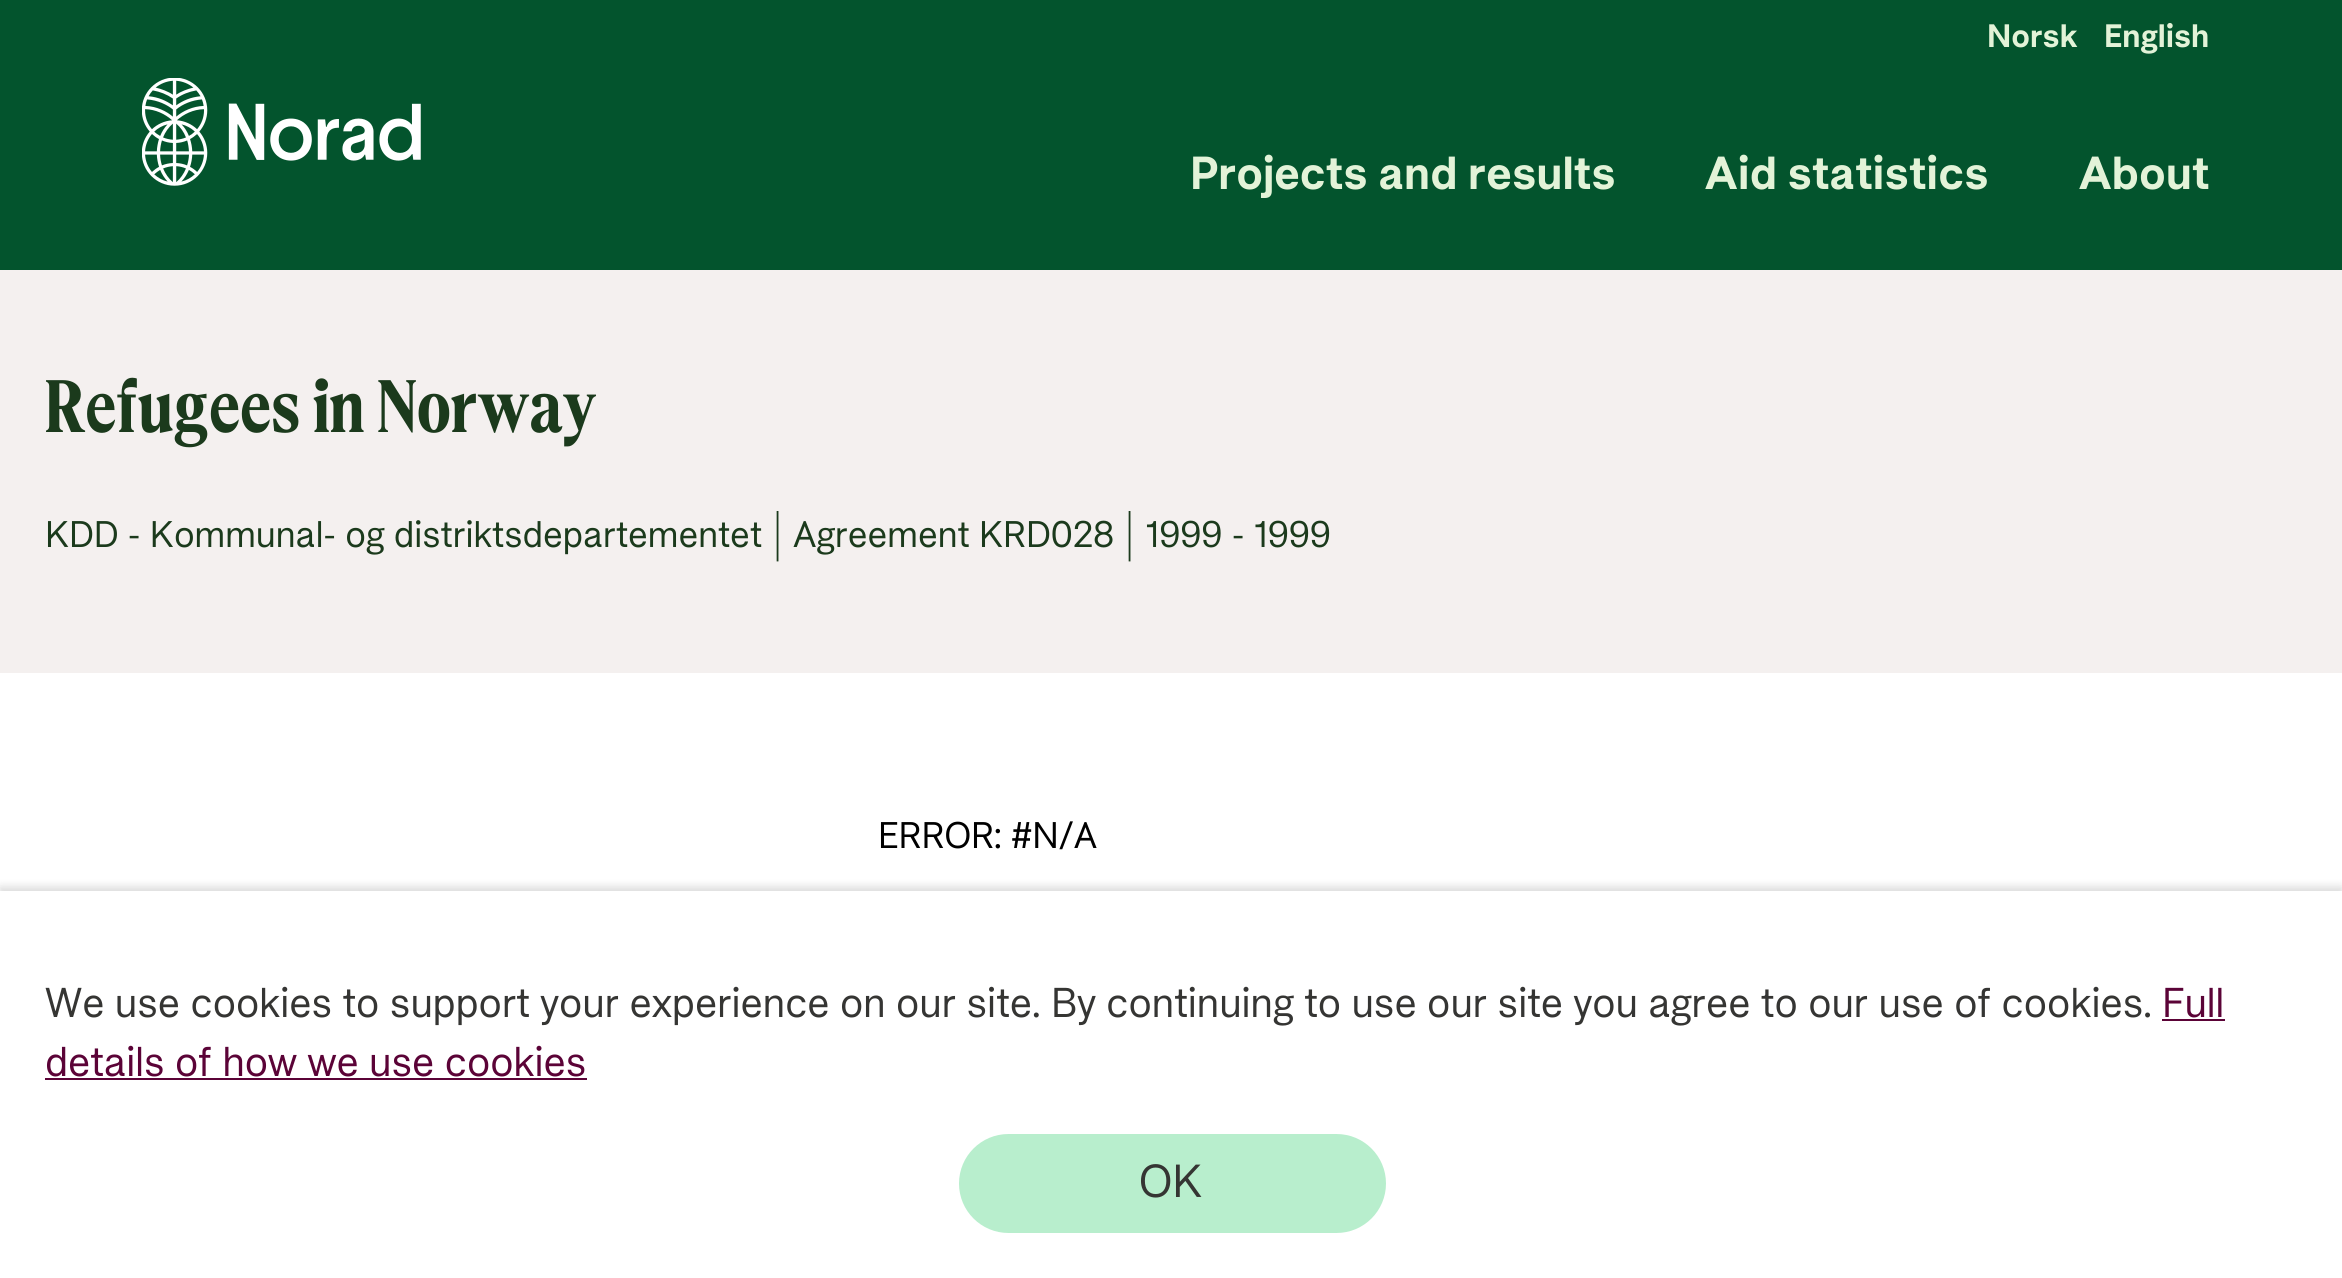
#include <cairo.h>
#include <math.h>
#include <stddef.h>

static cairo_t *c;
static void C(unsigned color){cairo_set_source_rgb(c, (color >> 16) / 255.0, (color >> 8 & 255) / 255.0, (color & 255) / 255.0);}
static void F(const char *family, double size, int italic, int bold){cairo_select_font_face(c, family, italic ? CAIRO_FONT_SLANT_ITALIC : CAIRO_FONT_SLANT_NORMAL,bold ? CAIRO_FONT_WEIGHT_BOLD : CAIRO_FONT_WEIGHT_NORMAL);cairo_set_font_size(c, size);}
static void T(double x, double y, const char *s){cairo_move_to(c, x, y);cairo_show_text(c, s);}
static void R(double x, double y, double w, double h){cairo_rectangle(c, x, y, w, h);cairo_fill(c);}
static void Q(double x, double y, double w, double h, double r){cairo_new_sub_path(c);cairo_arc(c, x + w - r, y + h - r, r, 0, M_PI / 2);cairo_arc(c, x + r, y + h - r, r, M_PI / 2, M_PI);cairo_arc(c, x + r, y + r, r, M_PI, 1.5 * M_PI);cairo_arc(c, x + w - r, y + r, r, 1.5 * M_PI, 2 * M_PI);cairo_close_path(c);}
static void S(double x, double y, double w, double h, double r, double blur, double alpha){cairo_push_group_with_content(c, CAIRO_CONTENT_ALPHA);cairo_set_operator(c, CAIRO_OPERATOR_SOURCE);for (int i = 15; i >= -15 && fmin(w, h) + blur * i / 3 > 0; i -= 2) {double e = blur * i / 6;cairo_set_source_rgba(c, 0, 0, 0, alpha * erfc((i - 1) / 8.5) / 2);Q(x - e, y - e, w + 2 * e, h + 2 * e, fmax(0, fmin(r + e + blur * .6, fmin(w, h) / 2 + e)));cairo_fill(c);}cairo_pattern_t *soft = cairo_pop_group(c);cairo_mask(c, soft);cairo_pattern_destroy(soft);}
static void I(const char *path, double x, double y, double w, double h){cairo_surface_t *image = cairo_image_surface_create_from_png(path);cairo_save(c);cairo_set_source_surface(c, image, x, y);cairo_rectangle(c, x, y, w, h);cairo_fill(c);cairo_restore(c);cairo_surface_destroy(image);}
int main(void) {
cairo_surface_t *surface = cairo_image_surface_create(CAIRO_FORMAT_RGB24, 2342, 1278);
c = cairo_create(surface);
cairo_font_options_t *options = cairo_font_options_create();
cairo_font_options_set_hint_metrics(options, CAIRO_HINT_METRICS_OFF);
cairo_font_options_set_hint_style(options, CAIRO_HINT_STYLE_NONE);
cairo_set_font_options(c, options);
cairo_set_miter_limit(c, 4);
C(0xffffff);
cairo_paint(c);
C(0x03542d);
R(0,0,2342,270);
F("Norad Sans",31.5,0,1);
C(0xe3f3d8);
T(1987,47,"Norsk");
T(2104,47,"English");
I("1.png",142,78,279,108);
F("Norad Sans",45,0,1);
T(1190,189,"Projects and results");
T(1705,189,"Aid statistics");
T(2079,189,"About");
C(0xf4f0ef);
R(0,270,2342,403);
F("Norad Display",72,0,1);
C(0x1b3a1c);
T(45,432,"Refugees in Norway");
F("Norad Sans",36,0,0);
T(45,547,"KDD - Kommunal- og distriktsdepartementet | Agreement KRD028 | 1999 - 1999");
C(0x000000);
T(878,848,"ERROR: #N/A");
C(0x000000);
S(0,887,2342,387,0,4.5,.15);
C(0xffffff);
R(0,891,2342,387);
F("Norad Sans",40.5,0,0);
C(0x353533);
T(45,1017,"We use cookies to support your experience on our site. By continuing to use our site you agree to our use of cookies.");
C(0x5b0337);
T(2162,1017,"Full");
R(2162,1019,63,2);
T(45,1076,"details of how we use cookies");
R(45,1078,542,2);
C(0xb8eecd);
Q(959,1134,427,99,49.5);
cairo_fill(c);
F("Norad Sans",45,0,0);
C(0x353533);
T(1139,1197,"OK");
cairo_surface_write_to_png(surface, "o.png");
cairo_font_options_destroy(options);
cairo_destroy(c);
cairo_surface_destroy(surface);
return 0;
}
